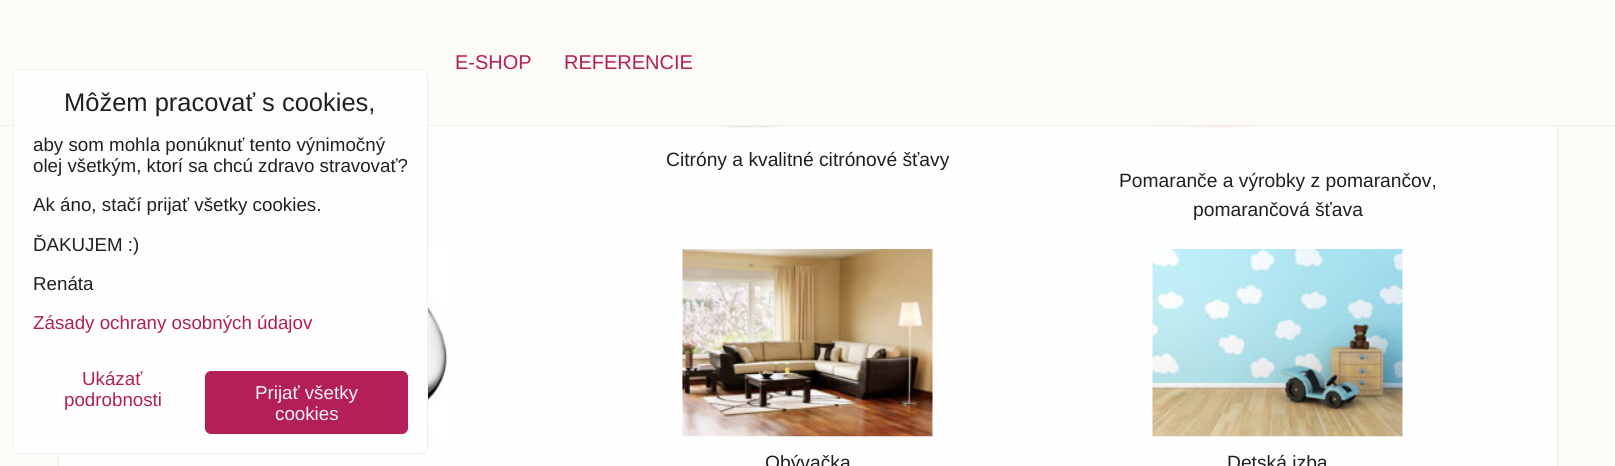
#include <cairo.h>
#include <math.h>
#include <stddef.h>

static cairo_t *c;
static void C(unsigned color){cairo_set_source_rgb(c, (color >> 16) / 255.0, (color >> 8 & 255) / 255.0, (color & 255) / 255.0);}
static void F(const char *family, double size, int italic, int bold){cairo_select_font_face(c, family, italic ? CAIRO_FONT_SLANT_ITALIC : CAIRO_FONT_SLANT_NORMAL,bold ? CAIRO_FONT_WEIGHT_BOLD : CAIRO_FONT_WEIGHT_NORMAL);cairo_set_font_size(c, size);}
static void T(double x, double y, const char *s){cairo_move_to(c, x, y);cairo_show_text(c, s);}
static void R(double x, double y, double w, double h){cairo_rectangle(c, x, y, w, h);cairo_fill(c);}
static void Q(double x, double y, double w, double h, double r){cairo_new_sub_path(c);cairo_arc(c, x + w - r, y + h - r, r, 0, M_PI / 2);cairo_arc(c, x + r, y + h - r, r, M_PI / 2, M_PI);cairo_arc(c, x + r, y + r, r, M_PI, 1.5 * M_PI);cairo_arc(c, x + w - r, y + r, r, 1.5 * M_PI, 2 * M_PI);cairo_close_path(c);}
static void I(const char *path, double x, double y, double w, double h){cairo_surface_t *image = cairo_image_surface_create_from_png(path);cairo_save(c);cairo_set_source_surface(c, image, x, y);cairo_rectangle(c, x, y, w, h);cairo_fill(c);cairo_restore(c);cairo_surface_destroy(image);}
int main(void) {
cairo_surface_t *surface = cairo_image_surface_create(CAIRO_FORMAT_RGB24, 1615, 466);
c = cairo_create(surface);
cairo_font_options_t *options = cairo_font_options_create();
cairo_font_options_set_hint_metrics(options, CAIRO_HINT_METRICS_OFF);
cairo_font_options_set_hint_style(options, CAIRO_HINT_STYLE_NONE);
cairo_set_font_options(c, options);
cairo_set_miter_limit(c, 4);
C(0xfcfbf6);
cairo_paint(c);
C(0xfefefe);
R(59,126,1498,340);
cairo_rectangle(c,58.5,-.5,1499,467);
C(0xf0efea);
cairo_set_line_width(c,1);
cairo_stroke(c);
C(0xfcfbf6);
R(58,0,1500,125);
C(0xf0efea);
R(0,125,1615,1);
C(0xfefefe);
Q(13.5,69.5,414,384,5.5);
cairo_fill_preserve(c);
C(0xf0efea);
cairo_stroke(c);
F("Liberation Sans",25.5,0,0);
C(0x1d2122);
T(64,111,"Môžem pracovať s cookies,");
F("Liberation Sans",18.75,0,0);
T(33,151,"aby som mohla ponúknuť tento výnimočný");
T(33,172,"olej všetkým, ktorí sa chcú zdravo stravovať?");
T(33,211,"Ak áno, stačí prijať všetky cookies.");
T(33,251,"ĎAKUJEM :)");
T(33,290,"Renáta");
C(0xb41f57);
T(33,329,"Zásady ochrany osobných údajov");
T(82,385,"Ukázať");
T(64,406,"podrobnosti");
Q(205.5,371.5,202,62,5.5);
cairo_fill_preserve(c);
cairo_stroke(c);
C(0xf5f5f5);
T(255,399,"Prijať všetky");
T(275,420,"cookies");
F("Liberation Sans",20,0,0);
C(0xb41f57);
T(455,69,"E-SHOP");
T(564,69,"REFERENCIE");
I("1.png",682,126,239,3);
F("Liberation Sans",19.25,0,0);
C(0x1d2122);
T(666,166,"Citróny a kvalitné citrónové šťavy");
I("2.png",1152,126,241,2);
T(1119,187,"Pomaranče a výrobky z pomarančov,");
T(1193,216,"pomarančová šťava");
I("3.png",428,249,23,190);
I("4.png",682,249,251,188);
T(765,469,"Obývačka");
I("5.png",1152,249,251,188);
T(1227,469,"Detská izba");
cairo_surface_write_to_png(surface, "o.png");
cairo_font_options_destroy(options);
cairo_destroy(c);
cairo_surface_destroy(surface);
return 0;
}
